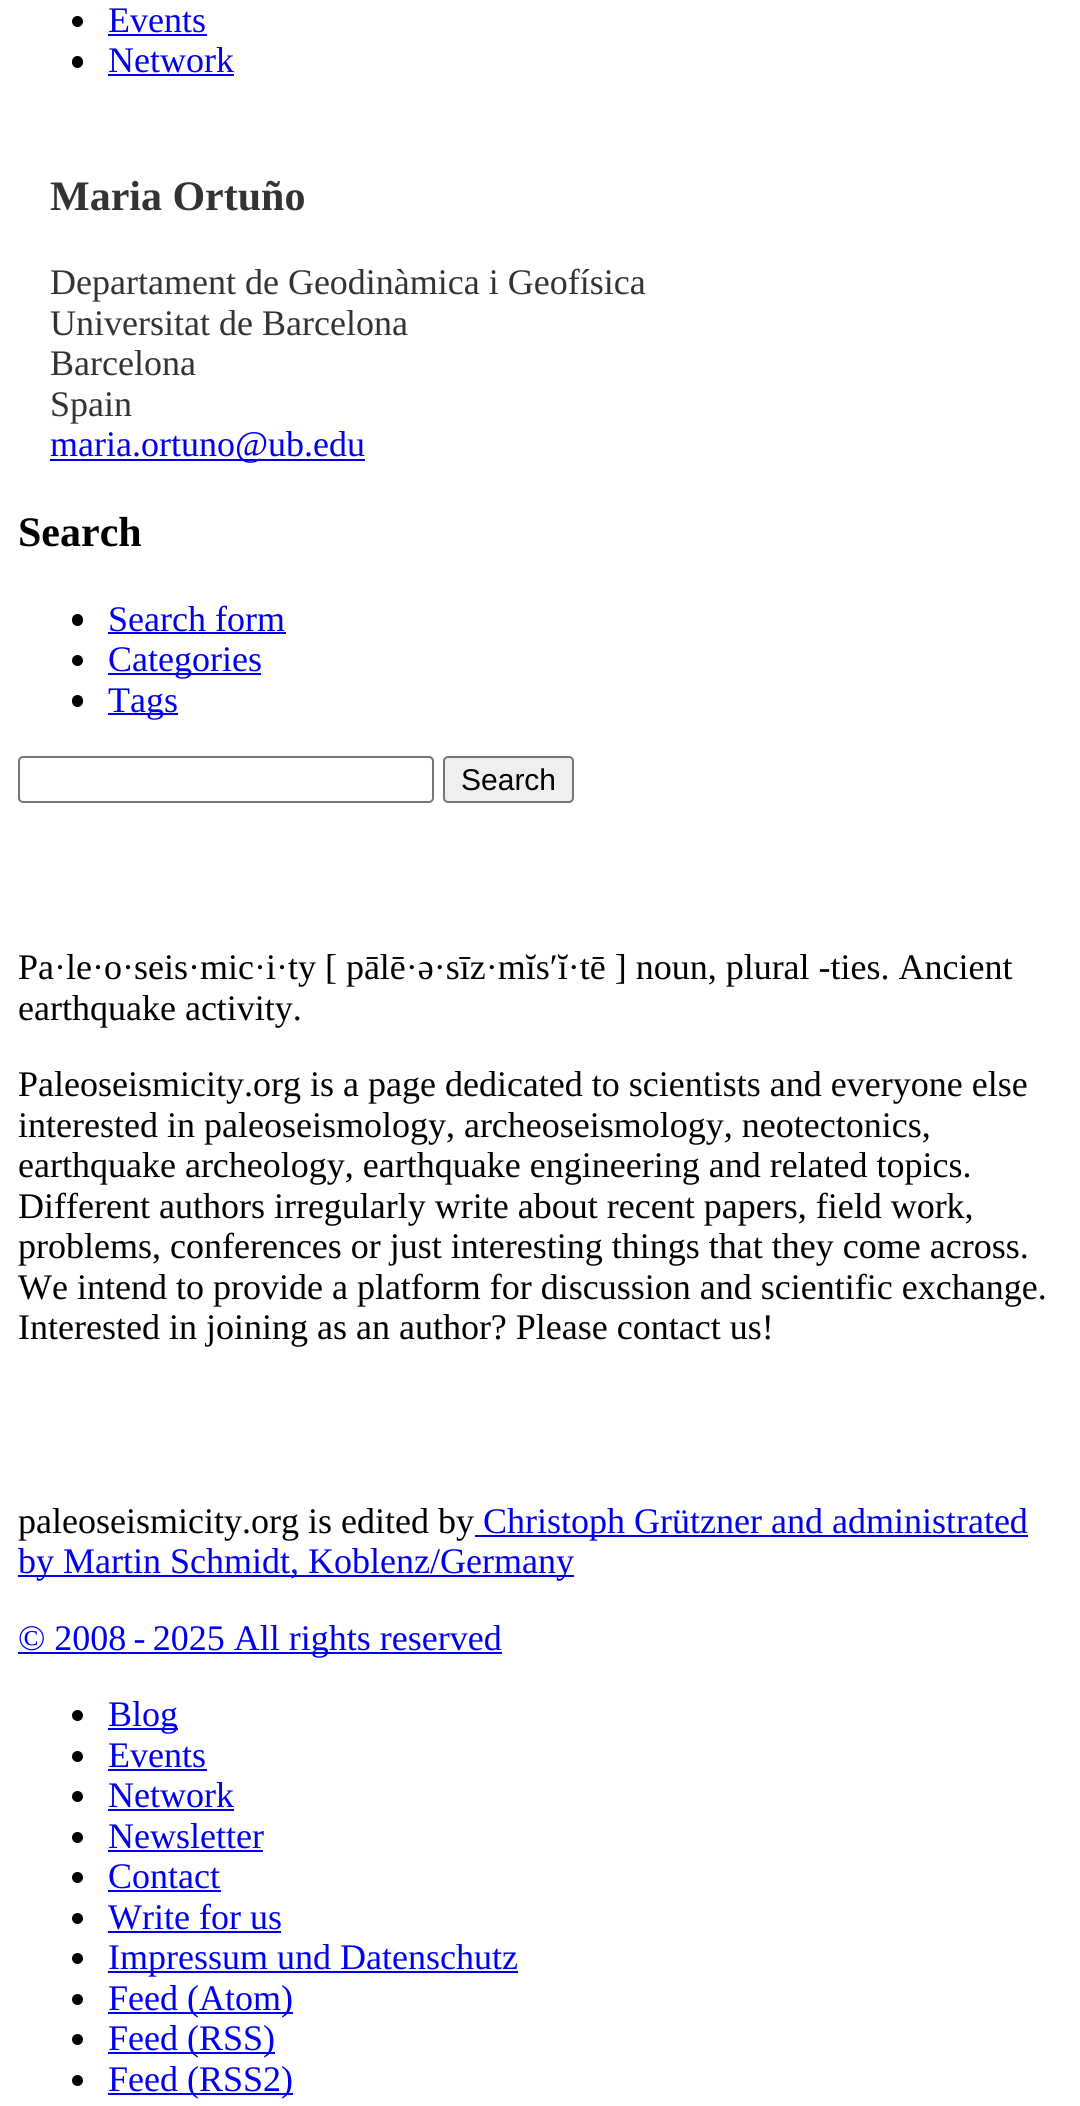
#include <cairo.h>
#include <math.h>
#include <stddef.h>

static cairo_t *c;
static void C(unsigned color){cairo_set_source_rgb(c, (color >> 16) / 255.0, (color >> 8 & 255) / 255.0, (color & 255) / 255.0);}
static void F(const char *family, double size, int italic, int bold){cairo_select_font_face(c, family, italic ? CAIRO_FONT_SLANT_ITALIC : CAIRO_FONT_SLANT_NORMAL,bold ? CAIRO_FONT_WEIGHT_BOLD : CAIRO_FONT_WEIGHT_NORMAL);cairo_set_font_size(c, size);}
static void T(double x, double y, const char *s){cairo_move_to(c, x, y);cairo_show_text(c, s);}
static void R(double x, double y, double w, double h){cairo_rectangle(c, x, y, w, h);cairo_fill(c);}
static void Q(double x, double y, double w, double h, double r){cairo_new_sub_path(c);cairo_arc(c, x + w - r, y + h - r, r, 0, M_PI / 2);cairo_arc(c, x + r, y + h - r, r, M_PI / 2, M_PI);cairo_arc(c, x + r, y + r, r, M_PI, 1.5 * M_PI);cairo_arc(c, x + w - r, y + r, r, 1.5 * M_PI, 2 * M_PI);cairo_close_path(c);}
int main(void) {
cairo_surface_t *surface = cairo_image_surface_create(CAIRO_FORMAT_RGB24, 1080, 2106);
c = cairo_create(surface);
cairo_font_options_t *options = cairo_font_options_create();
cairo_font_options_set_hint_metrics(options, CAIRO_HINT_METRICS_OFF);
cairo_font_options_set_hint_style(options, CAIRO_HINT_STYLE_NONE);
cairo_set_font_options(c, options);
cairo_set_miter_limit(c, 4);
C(0xffffff);
cairo_paint(c);
C(0x000000);
cairo_arc(c,77.5,21.5,5.5,0,2 * M_PI);
cairo_fill(c);
F("Liberation Serif",36,0,0);
C(0x0000ee);
T(108,32,"Events");
R(108,34,99,2);
C(0x000000);
Q(72,56,11,12,5.5);
cairo_fill(c);
C(0x0000ee);
T(108,72,"Network");
R(108,74,126,2);
F("Liberation Serif",42,0,1);
C(0x333333);
T(50,210,"Maria Ortuño");
F("Liberation Serif",36,0,0);
T(50,294,"Departament de Geodinàmica i Geofísica");
T(50,335,"Universitat de Barcelona");
T(50,375,"Barcelona");
T(50,416,"Spain");
C(0x0000ee);
R(50,459,315,2);
T(50,456,"maria.ortuno@ub.edu");
F("Liberation Serif",42,0,1);
C(0x000000);
T(18,546,"Search");
Q(72,614,11,12,5.5);
cairo_fill(c);
F("Liberation Serif",36,0,0);
C(0x0000ee);
T(108,631,"Search form");
R(108,632,178,2);
C(0x000000);
cairo_new_path(c);
cairo_arc(c,77.5,660.5,5.5,0,2 * M_PI);
cairo_fill(c);
C(0x0000ee);
R(108,673,153,2);
T(108,671,"Categories");
C(0x000000);
Q(72,695,11,12,5.5);
cairo_fill(c);
C(0x0000ee);
R(108,713,70,2);
T(108,712,"Tags");
Q(19,757,414,45,4);
C(0x767676);
cairo_stroke(c);
C(0xefefef);
Q(444,757,129,45,4);
cairo_fill_preserve(c);
C(0x767676);
cairo_stroke(c);
F("Liberation Sans",30,0,0);
C(0x000000);
T(461,790,"Search");
F("Liberation Serif",36,0,0);
T(18,979,"Pa·le·o·seis·mic·i·ty [ pālē·ə·sīz·mĭs′ĭ·tē ] noun, plural -ties. Ancient");
T(18,1020,"earthquake activity.");
T(18,1096,"Paleoseismicity.org is a page dedicated to scientists and everyone else");
T(18,1137,"interested in paleoseismology, archeoseismology, neotectonics,");
T(18,1177,"earthquake archeology, earthquake engineering and related topics.");
T(18,1218,"Different authors irregularly write about recent papers, field work,");
T(18,1258,"problems, conferences or just interesting things that they come across.");
T(18,1299,"We intend to provide a platform for discussion and scientific exchange.");
T(18,1339,"Interested in joining as an author? Please contact us!");
T(18,1533,"paleoseismicity.org is edited by");
C(0x0000ee);
R(475,1535,553,2);
T(483,1533,"Christoph Grützner and administrated");
R(18,1575,556,2);
T(18,1573,"by Martin Schmidt, Koblenz/Germany");
R(18,1652,484,2);
T(18,1650,"© 2008 - 2025 All rights reserved");
C(0x000000);
cairo_new_path(c);
cairo_arc(c,77.5,1715.5,5.5,0,2 * M_PI);
cairo_fill(c);
C(0x0000ee);
R(108,1728,70,2);
T(108,1726,"Blog");
C(0x000000);
cairo_new_path(c);
cairo_arc(c,77.5,1756.5,5.5,0,2 * M_PI);
cairo_fill(c);
C(0x0000ee);
T(108,1767,"Events");
R(108,1769,99,2);
C(0x000000);
cairo_new_path(c);
cairo_arc(c,77.5,1796.5,5.5,0,2 * M_PI);
cairo_fill(c);
C(0x0000ee);
T(108,1807,"Network");
R(108,1809,126,2);
C(0x000000);
cairo_new_path(c);
cairo_arc(c,77.5,1837.5,5.5,0,2 * M_PI);
cairo_fill(c);
C(0x0000ee);
T(108,1848,"Newsletter");
R(108,1850,155,2);
C(0x000000);
cairo_new_path(c);
cairo_arc(c,77.5,1877.5,5.5,0,2 * M_PI);
cairo_fill(c);
C(0x0000ee);
T(108,1888,"Contact");
R(108,1890,113,2);
C(0x000000);
cairo_new_path(c);
cairo_arc(c,77.5,1918.5,5.5,0,2 * M_PI);
cairo_fill(c);
C(0x0000ee);
T(108,1929,"Write for us");
R(108,1931,173,2);
C(0x000000);
cairo_new_path(c);
cairo_arc(c,77.5,1958.5,5.5,0,2 * M_PI);
cairo_fill(c);
C(0x0000ee);
R(108,1971,410,2);
T(108,1969,"Impressum und Datenschutz");
C(0x000000);
cairo_new_path(c);
cairo_arc(c,77.5,1999.5,5.5,0,2 * M_PI);
cairo_fill(c);
C(0x0000ee);
R(108,2012,185,2);
T(108,2010,"Feed (Atom)");
C(0x000000);
cairo_new_path(c);
cairo_arc(c,77.5,2039.5,5.5,0,2 * M_PI);
cairo_fill(c);
C(0x0000ee);
R(108,2052,167,2);
T(108,2050,"Feed (RSS)");
C(0x000000);
cairo_new_path(c);
cairo_arc(c,77.5,2080.5,5.5,0,2 * M_PI);
cairo_fill(c);
C(0x0000ee);
R(108,2093,185,2);
T(108,2091,"Feed (RSS2)");
cairo_surface_write_to_png(surface, "o.png");
cairo_font_options_destroy(options);
cairo_destroy(c);
cairo_surface_destroy(surface);
return 0;
}
